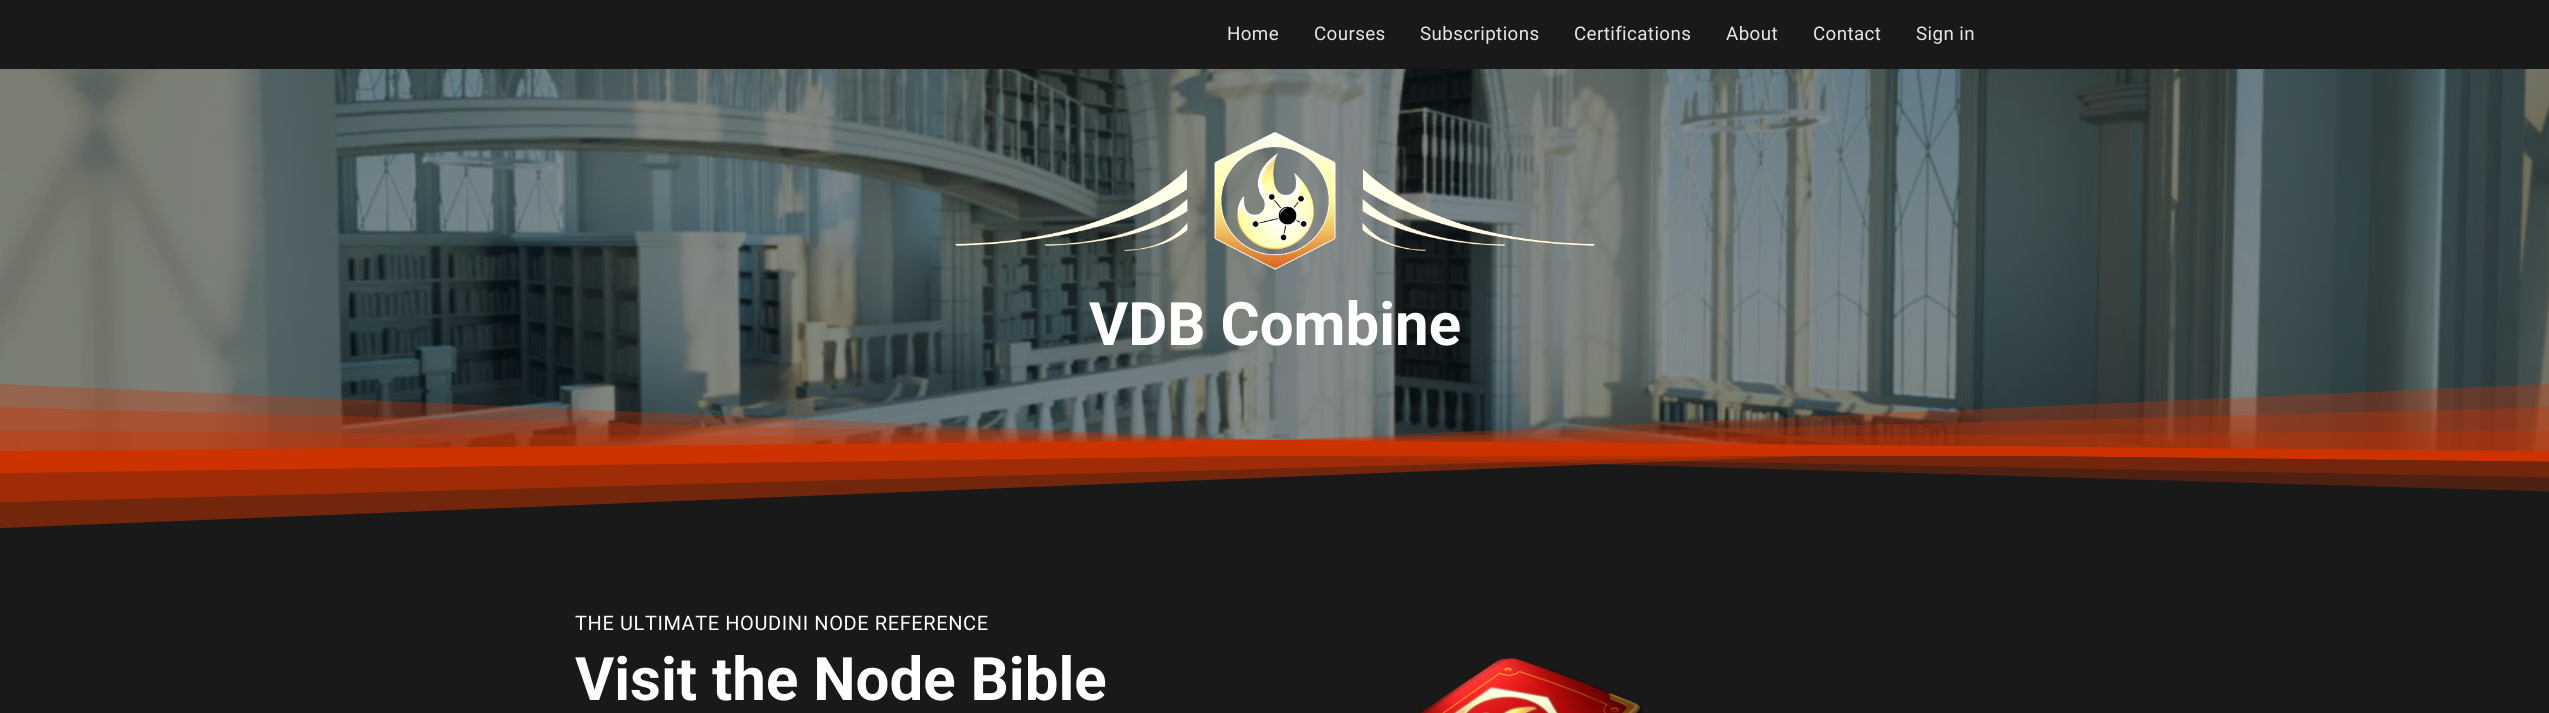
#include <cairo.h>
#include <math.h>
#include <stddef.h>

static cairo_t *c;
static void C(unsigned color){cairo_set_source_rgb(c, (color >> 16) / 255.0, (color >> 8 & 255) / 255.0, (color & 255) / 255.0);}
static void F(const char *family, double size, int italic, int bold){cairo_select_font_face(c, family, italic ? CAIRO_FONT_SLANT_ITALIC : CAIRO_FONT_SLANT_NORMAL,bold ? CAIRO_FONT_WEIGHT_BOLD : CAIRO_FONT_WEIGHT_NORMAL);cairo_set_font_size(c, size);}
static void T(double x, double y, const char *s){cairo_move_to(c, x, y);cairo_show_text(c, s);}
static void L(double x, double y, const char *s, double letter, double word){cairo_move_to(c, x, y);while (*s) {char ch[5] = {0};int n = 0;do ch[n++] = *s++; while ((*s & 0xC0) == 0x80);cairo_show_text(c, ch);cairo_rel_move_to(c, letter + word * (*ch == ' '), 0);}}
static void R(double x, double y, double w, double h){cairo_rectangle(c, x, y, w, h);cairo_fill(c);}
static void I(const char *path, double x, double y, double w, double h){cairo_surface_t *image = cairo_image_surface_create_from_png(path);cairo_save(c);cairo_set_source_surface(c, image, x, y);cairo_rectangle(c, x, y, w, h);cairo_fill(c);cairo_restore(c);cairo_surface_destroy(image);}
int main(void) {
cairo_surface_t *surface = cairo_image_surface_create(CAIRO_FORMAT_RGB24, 2549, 713);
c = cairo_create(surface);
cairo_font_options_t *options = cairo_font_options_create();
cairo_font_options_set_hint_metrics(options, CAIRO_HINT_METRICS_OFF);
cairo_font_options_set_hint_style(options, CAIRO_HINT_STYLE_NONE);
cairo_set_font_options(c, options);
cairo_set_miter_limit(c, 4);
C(0x191919);
cairo_paint(c);
F("Roboto",18.75,0,0);
C(0xe6e6e6);
L(1227,40,"Home",.4,0);
L(1314,40,"Courses",.4,0);
L(1420,40,"Subscriptions",.4,0);
L(1574,40,"Certifications",.4,0);
L(1726,40,"About",.4,0);
L(1813,40,"Contact",.4,0);
L(1916,40,"Sign in",.4,0);
I("1.png",0,69,2549,383);
cairo_set_source_rgba(c,0.02,0.086,0.118,0.47);
R(0,69,2549,383);
I("2.png",955,131,640,139);
F("Roboto",60,0,1);
C(0xffffff);
T(1089,345,"VDB Combine");
cairo_save(c);
cairo_rectangle(c,0,378,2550,78);
cairo_clip(c);
cairo_set_source_rgba(c,0.8,0.2,0,0.33);
cairo_new_path(c);
cairo_move_to(c,-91,457);
cairo_line_to(c,-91,380);
cairo_line_to(c,1275,440);
cairo_line_to(c,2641,380);
cairo_line_to(c,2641,457);
cairo_close_path(c);
cairo_fill(c);
cairo_new_path(c);
cairo_move_to(c,-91,457);
cairo_line_to(c,-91,405);
cairo_line_to(c,1275,440);
cairo_line_to(c,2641,405);
cairo_line_to(c,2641,457);
cairo_close_path(c);
cairo_fill(c);
cairo_new_path(c);
cairo_move_to(c,-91,457);
cairo_line_to(c,-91,430);
cairo_line_to(c,1275,440);
cairo_line_to(c,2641,430);
cairo_line_to(c,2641,457);
cairo_close_path(c);
cairo_fill(c);
C(0xcc3300);
cairo_new_path(c);
cairo_move_to(c,-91,457);
cairo_line_to(c,-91,452);
cairo_line_to(c,1275,440);
cairo_line_to(c,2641,452);
cairo_line_to(c,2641,457);
cairo_close_path(c);
cairo_fill(c);
cairo_restore(c);
I("3.png",0,456,2549,72);
F("Roboto",20,0,0);
L(575,630,"THE ULTIMATE HOUDINI NODE REFERENCE",.6,0);
F("Roboto",60,0,1);
T(575,700,"Visit the Node Bible");
I("4.png",1420,657,223,56);
cairo_surface_write_to_png(surface, "o.png");
cairo_font_options_destroy(options);
cairo_destroy(c);
cairo_surface_destroy(surface);
return 0;
}
